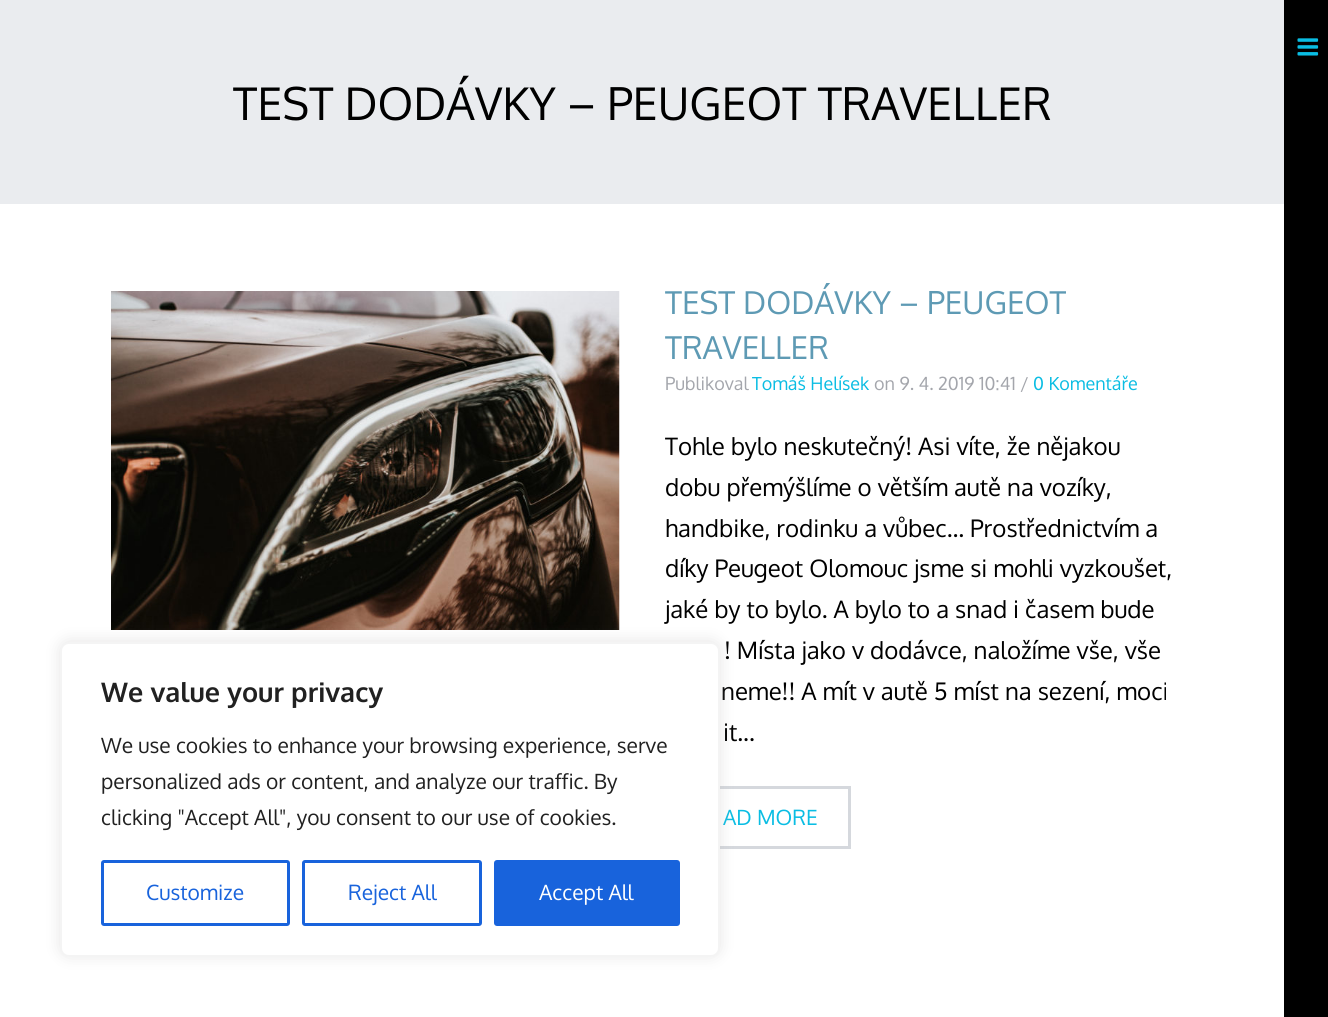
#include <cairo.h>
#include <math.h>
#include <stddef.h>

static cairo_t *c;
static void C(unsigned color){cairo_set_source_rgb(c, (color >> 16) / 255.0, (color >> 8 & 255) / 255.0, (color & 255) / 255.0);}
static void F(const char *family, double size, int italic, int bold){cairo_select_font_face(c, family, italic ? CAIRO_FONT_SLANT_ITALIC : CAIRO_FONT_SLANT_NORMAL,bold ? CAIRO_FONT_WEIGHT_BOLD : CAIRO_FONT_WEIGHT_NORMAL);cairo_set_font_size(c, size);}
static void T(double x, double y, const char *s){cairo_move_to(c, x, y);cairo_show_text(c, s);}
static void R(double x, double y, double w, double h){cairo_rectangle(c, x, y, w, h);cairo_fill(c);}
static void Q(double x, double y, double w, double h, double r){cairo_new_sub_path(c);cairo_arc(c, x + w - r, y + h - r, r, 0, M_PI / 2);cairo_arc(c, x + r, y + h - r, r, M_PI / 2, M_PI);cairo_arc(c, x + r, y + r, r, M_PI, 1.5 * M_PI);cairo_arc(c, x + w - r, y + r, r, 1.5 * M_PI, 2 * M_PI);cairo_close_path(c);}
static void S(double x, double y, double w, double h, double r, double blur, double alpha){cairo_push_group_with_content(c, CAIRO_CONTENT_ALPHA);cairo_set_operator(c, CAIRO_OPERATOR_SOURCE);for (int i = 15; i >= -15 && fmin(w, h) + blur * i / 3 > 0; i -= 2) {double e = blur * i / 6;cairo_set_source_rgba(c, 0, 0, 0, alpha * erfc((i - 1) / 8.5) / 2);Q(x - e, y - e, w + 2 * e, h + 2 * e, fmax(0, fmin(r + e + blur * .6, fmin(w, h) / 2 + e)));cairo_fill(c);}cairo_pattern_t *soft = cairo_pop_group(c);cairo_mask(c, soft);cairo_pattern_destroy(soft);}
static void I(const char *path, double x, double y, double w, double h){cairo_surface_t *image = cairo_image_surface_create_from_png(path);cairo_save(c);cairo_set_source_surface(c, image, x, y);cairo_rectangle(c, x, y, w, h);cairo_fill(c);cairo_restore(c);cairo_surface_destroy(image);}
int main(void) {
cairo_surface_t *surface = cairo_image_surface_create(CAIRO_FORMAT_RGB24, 1328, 1017);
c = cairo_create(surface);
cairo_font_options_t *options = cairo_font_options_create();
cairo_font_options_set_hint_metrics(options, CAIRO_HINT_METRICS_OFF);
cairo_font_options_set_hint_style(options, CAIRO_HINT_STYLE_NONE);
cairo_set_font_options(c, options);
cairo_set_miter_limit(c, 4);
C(0xffffff);
cairo_paint(c);
C(0xeaecef);
R(0,0,1284,204);
F("Oxygen",45,0,0);
C(0x000000);
T(233,120,"TEST DODÁVKY – PEUGEOT TRAVELLER");
I("1.png",111,291,509,339);
F("Oxygen",31.5,0,0);
C(0x5e9ab4);
T(665,314,"TEST DODÁVKY – PEUGEOT");
T(665,359,"TRAVELLER");
F("Oxygen",18,0,0);
C(0xa4a6ac);
T(665,390,"Publikoval");
C(0x0abde3);
T(752,390,"Tomáš Helísek");
C(0xa4a6ac);
T(874,390,"on 9. 4. 2019 10:41 /");
C(0x0abde3);
T(1033,390,"0 Komentáře");
F("Oxygen",24,0,0);
C(0x000000);
T(665,455,"Tohle bylo neskutečný! Asi víte, že nějakou");
T(665,496,"dobu přemýšlíme o větším autě na vozíky,");
T(665,537,"handbike, rodinku a vůbec… Prostřednictvím a");
T(665,577,"díky Peugeot Olomouc jsme si mohli vyzkoušet,");
T(665,618,"jaké by to bylo. A bylo to a snad i časem bude");
T(724,659,"! Místa jako v dodávce, naložíme vše, vše");
T(721,700,"neme!! A mít v autě 5 míst na sezení, moci");
T(723,741,"it...");
cairo_rectangle(c,666.5,787.5,183,60);
C(0xd5d8dd);
cairo_set_line_width(c,3);
cairo_stroke(c);
F("Oxygen",21,0,0);
C(0x0abde3);
T(723,825,"AD MORE");
C(0x000000);
R(1284,0,44,1017);
I("2.png",1297,38,22,18);
C(0xacabab);
S(60,641,660,315,9,7.5,.3);
C(0xffffff);
Q(61,643,658,313,8);
cairo_fill_preserve(c);
C(0xf4f4f4);
cairo_set_line_width(c,2);
cairo_stroke(c);
F("Oxygen",27,0,1);
C(0x212121);
T(101,702,"We value your privacy");
F("Oxygen",21,0,0);
T(101,753,"We use cookies to enhance your browsing experience, serve");
T(101,789,"personalized ads or content, and analyze our traffic. By");
T(101,825,"clicking \"Accept All\", you consent to our use of cookies.");
Q(102.5,861.5,186,63,1.5);
C(0x1863dc);
cairo_set_line_width(c,3);
cairo_stroke(c);
T(146,900,"Customize");
Q(303.5,861.5,177,63,1.5);
cairo_stroke(c);
T(348,900,"Reject All");
Q(495.5,861.5,183,63,1.5);
cairo_fill_preserve(c);
cairo_stroke(c);
C(0xffffff);
T(539,900,"Accept All");
cairo_surface_write_to_png(surface, "o.png");
cairo_font_options_destroy(options);
cairo_destroy(c);
cairo_surface_destroy(surface);
return 0;
}
